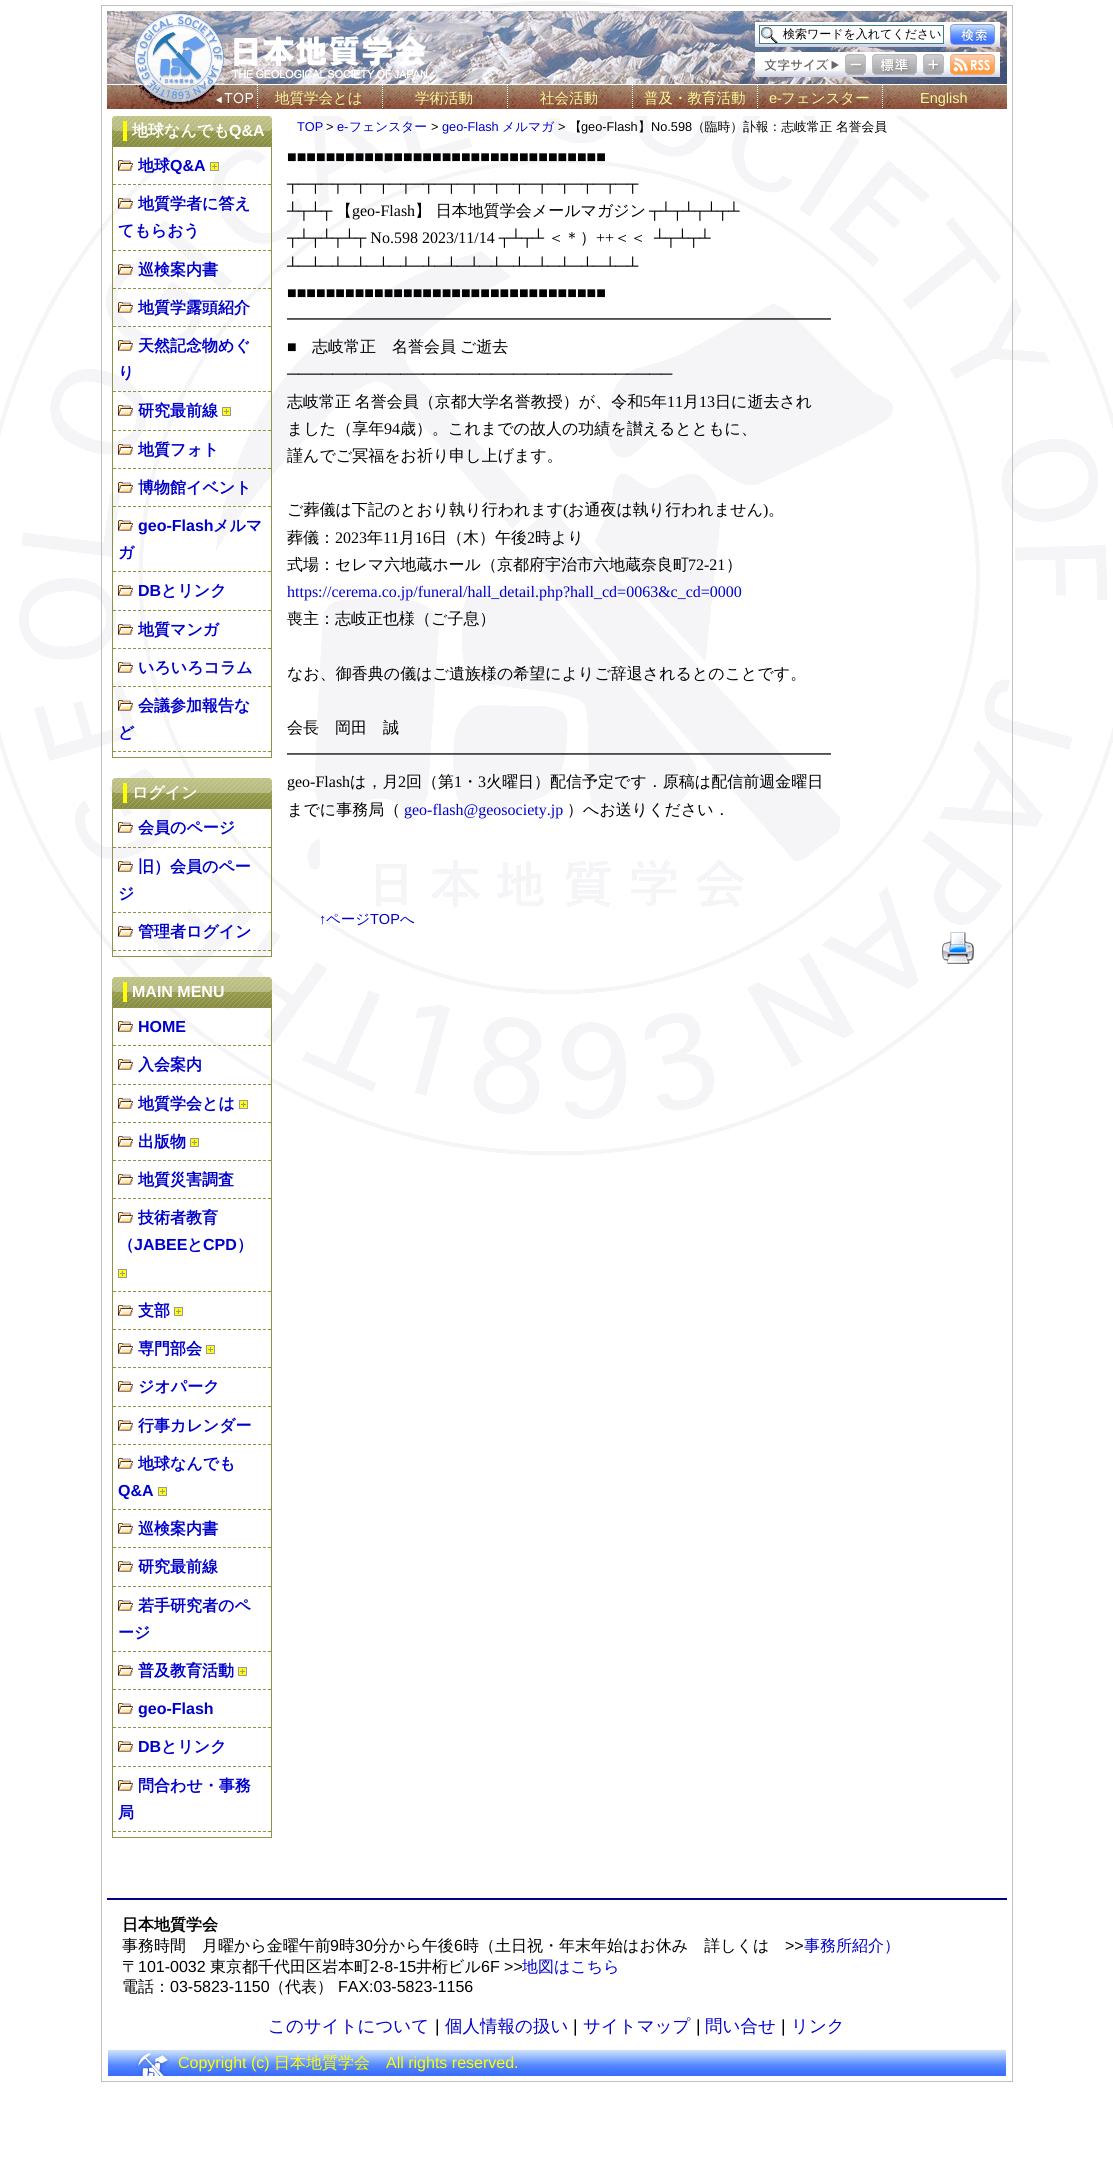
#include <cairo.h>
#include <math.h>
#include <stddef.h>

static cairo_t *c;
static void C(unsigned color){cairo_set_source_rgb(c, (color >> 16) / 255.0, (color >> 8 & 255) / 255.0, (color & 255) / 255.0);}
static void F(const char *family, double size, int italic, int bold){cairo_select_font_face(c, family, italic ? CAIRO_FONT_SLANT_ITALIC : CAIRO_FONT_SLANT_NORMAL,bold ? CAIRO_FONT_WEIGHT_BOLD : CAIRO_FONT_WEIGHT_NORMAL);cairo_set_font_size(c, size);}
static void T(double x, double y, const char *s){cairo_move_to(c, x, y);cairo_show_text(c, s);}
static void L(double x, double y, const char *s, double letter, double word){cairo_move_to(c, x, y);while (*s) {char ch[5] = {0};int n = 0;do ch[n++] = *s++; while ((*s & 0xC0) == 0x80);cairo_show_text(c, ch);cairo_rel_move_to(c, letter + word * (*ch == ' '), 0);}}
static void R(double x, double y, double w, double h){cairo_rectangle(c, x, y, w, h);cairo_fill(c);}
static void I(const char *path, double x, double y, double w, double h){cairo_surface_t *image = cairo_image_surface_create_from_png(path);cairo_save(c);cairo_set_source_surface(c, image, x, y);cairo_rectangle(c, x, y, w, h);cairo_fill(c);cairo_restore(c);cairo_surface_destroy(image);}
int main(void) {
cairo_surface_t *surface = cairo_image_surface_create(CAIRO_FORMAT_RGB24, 1113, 2170);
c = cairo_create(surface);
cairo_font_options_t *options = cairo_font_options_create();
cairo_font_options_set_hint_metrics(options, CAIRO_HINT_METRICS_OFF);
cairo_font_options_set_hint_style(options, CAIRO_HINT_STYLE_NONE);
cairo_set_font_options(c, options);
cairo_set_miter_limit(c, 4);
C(0xffffff);
cairo_paint(c);
I("1.png",0,1,1113,1155);
cairo_rectangle(c,101.5,5.5,911,2076);
C(0xc0c0c0);
cairo_set_line_width(c,1);
cairo_stroke(c);
I("2.png",107,11,900,73);
I("3.png",134,13,90,72);
I("4.png",755,22,245,25);
C(0xffffff);
R(760,37,183,6);
I("5.png",761,27,17,16);
cairo_rectangle(c,759.5,25.5,184,18);
C(0x408080);
cairo_stroke(c);
F("WenQuanYi Zen Hei Medium",12,0,0);
C(0x000000);
T(783,38,"検索ワードを入れてください");
I("6.png",950,24,45,21);
I("4.png",755,52,245,25);
I("7.png",764,59,75,12);
I("8.png",845,54,21,21);
I("9.png",872,54,45,21);
I("10.png",923,54,21,21);
I("11.png",950,54,45,21);
I("12.png",232,36,196,43);
I("13.png",107,85,150,31);
I("14.png",257,85,125,31);
F("WenQuanYi Zen Hei Medium",14.5,0,0);
C(0xfcf897);
T(275,103,"地質学会とは");
I("14.png",382,85,125,31);
T(415,103,"学術活動");
I("14.png",507,85,125,31);
T(540,103,"社会活動");
I("14.png",632,85,125,31);
T(644,103,"普及・教育活動");
I("14.png",757,85,125,31);
F("Liberation Sans",14.5,0,0);
T(769,103,"e-");
F("WenQuanYi Zen Hei Medium",14.5,0,0);
T(781,103,"フェンスター");
I("14.png",882,85,125,31);
F("Liberation Sans",14.5,0,0);
T(920,103,"English");
I("15.png",112,116,160,30);
F("WenQuanYi Zen Hei",16,0,1);
C(0xffffff);
T(132,136,"地球なんでも");
F("Liberation Sans",16,0,1);
T(229,136,"Q&A");
cairo_rectangle(c,112.5,146.5,159,611);
C(0x8e9347);
cairo_stroke(c);
cairo_new_path(c);
cairo_move_to(c,113,184.5);
cairo_line_to(c,271,184.5);
cairo_set_dash(c,(double[]){3,2},2,0);
cairo_stroke(c);
I("16.png",118,160,15,11);
F("WenQuanYi Zen Hei",16,0,1);
C(0x0000cc);
T(138,171,"地球");
F("Liberation Sans",16,0,1);
T(170,171,"Q&A");
I("17.png",210,162,9,9);
cairo_new_path(c);
cairo_move_to(c,113,250.5);
cairo_line_to(c,271,250.5);
C(0x8e9347);
cairo_stroke(c);
I("16.png",118,198,15,11);
F("WenQuanYi Zen Hei",16,0,1);
C(0x0000cc);
T(138,209,"地質学者に答え");
T(118,236,"てもらおう");
cairo_new_path(c);
cairo_move_to(c,113,288.5);
cairo_line_to(c,271,288.5);
C(0x8e9347);
cairo_stroke(c);
I("18.png",118,264,15,11);
C(0x0000cc);
T(138,275,"巡検案内書");
cairo_new_path(c);
cairo_move_to(c,113,326.5);
cairo_line_to(c,271,326.5);
C(0x8e9347);
cairo_stroke(c);
I("16.png",118,302,15,11);
C(0x0000cc);
T(138,313,"地質学露頭紹介");
cairo_new_path(c);
cairo_move_to(c,113,391.5);
cairo_line_to(c,271,391.5);
C(0x8e9347);
cairo_stroke(c);
I("19.png",118,340,15,11);
C(0x0000cc);
T(138,351,"天然記念物めぐ");
T(118,378,"り");
cairo_new_path(c);
cairo_move_to(c,113,430.5);
cairo_line_to(c,271,430.5);
C(0x8e9347);
cairo_stroke(c);
I("16.png",118,405,15,11);
C(0x0000cc);
T(138,416,"研究最前線");
I("17.png",222,407,9,9);
cairo_new_path(c);
cairo_move_to(c,113,468.5);
cairo_line_to(c,271,468.5);
C(0x8e9347);
cairo_stroke(c);
I("20.png",118,444,15,11);
C(0x0000cc);
T(138,455,"地質フォト");
cairo_new_path(c);
cairo_move_to(c,113,506.5);
cairo_line_to(c,271,506.5);
C(0x8e9347);
cairo_stroke(c);
I("16.png",118,482,15,11);
C(0x0000cc);
T(138,493,"博物館イベント");
cairo_new_path(c);
cairo_move_to(c,113,571.5);
cairo_line_to(c,271,571.5);
C(0x8e9347);
cairo_stroke(c);
I("16.png",118,520,15,11);
F("Liberation Sans",16,0,1);
C(0x0000cc);
T(138,531,"geo-Flash");
F("WenQuanYi Zen Hei",16,0,1);
T(213,531,"メルマ");
T(118,558,"ガ");
cairo_new_path(c);
cairo_move_to(c,113,610.5);
cairo_line_to(c,271,610.5);
C(0x8e9347);
cairo_stroke(c);
I("16.png",118,585,15,11);
F("Liberation Sans",16,0,1);
C(0x0000cc);
T(138,596,"DB");
F("WenQuanYi Zen Hei",16,0,1);
T(161,596,"とリンク");
cairo_new_path(c);
cairo_move_to(c,113,648.5);
cairo_line_to(c,271,648.5);
C(0x8e9347);
cairo_stroke(c);
I("16.png",118,624,15,11);
C(0x0000cc);
T(138,635,"地質マンガ");
cairo_new_path(c);
cairo_move_to(c,113,686.5);
cairo_line_to(c,271,686.5);
C(0x8e9347);
cairo_stroke(c);
I("16.png",118,662,15,11);
C(0x0000cc);
T(138,673,"いろいろコラム");
cairo_new_path(c);
cairo_move_to(c,113,751.5);
cairo_line_to(c,271,751.5);
C(0x8e9347);
cairo_stroke(c);
I("16.png",118,700,15,11);
C(0x0000cc);
T(138,711,"会議参加報告な");
T(118,738,"ど");
I("15.png",112,778,160,30);
C(0xffffff);
T(132,798,"ログイン");
cairo_rectangle(c,112.5,808.5,159,148);
C(0x8e9347);
cairo_set_dash(c,NULL,0,0);
cairo_stroke(c);
cairo_new_path(c);
cairo_move_to(c,113,847.5);
cairo_line_to(c,271,847.5);
cairo_set_dash(c,(double[]){3,2},2,0);
cairo_stroke(c);
I("16.png",118,822,15,11);
C(0x0000cc);
T(138,833,"会員のページ");
cairo_new_path(c);
cairo_move_to(c,113,912.5);
cairo_line_to(c,271,912.5);
C(0x8e9347);
cairo_stroke(c);
I("16.png",118,861,15,11);
C(0x0000cc);
T(138,872,"旧）会員のペー");
T(118,899,"ジ");
cairo_new_path(c);
cairo_move_to(c,113,950.5);
cairo_line_to(c,271,950.5);
C(0x8e9347);
cairo_stroke(c);
I("16.png",118,926,15,11);
C(0x0000cc);
T(138,937,"管理者ログイン");
I("15.png",112,977,160,30);
F("Liberation Sans",16,0,1);
C(0xffffff);
T(132,997,"MAIN MENU");
cairo_rectangle(c,112.5,1007.5,159,830);
C(0x8e9347);
cairo_set_dash(c,NULL,0,0);
cairo_stroke(c);
cairo_new_path(c);
cairo_move_to(c,113,1045.5);
cairo_line_to(c,271,1045.5);
cairo_set_dash(c,(double[]){3,2},2,0);
cairo_stroke(c);
I("16.png",118,1021,15,11);
C(0x0000cc);
T(138,1032,"HOME");
cairo_new_path(c);
cairo_move_to(c,113,1084.5);
cairo_line_to(c,271,1084.5);
C(0x8e9347);
cairo_stroke(c);
I("16.png",118,1059,15,11);
F("WenQuanYi Zen Hei",16,0,1);
C(0x0000cc);
T(138,1070,"入会案内");
cairo_new_path(c);
cairo_move_to(c,113,1122.5);
cairo_line_to(c,271,1122.5);
C(0x8e9347);
cairo_stroke(c);
I("16.png",118,1098,15,11);
C(0x0000cc);
T(138,1109,"地質学会とは");
I("17.png",239,1100,9,9);
cairo_new_path(c);
cairo_move_to(c,113,1160.5);
cairo_line_to(c,271,1160.5);
C(0x8e9347);
cairo_stroke(c);
I("16.png",118,1136,15,11);
C(0x0000cc);
T(138,1147,"出版物");
I("17.png",190,1138,9,9);
cairo_new_path(c);
cairo_move_to(c,113,1198.5);
cairo_line_to(c,271,1198.5);
C(0x8e9347);
cairo_stroke(c);
I("16.png",118,1174,15,11);
C(0x0000cc);
T(138,1185,"地質災害調査");
cairo_new_path(c);
cairo_move_to(c,113,1291.5);
cairo_line_to(c,271,1291.5);
C(0x8e9347);
cairo_stroke(c);
I("16.png",118,1212,15,11);
C(0x0000cc);
T(138,1223,"技術者教育");
T(118,1250,"（");
F("Liberation Sans",16,0,1);
T(134,1250,"JABEE");
F("WenQuanYi Zen Hei",16,0,1);
T(187,1250,"と");
F("Liberation Sans",16,0,1);
T(203,1250,"CPD");
F("WenQuanYi Zen Hei",16,0,1);
T(237,1250,"）");
I("17.png",118,1269,9,9);
cairo_new_path(c);
cairo_move_to(c,113,1329.5);
cairo_line_to(c,271,1329.5);
C(0x8e9347);
cairo_stroke(c);
I("16.png",118,1305,15,11);
C(0x0000cc);
T(138,1316,"支部");
I("17.png",174,1307,9,9);
cairo_new_path(c);
cairo_move_to(c,113,1367.5);
cairo_line_to(c,271,1367.5);
C(0x8e9347);
cairo_stroke(c);
I("16.png",118,1343,15,11);
C(0x0000cc);
T(138,1354,"専門部会");
I("17.png",206,1345,9,9);
cairo_new_path(c);
cairo_move_to(c,113,1406.5);
cairo_line_to(c,271,1406.5);
C(0x8e9347);
cairo_stroke(c);
I("16.png",118,1381,15,11);
C(0x0000cc);
T(138,1392,"ジオパーク");
cairo_new_path(c);
cairo_move_to(c,113,1444.5);
cairo_line_to(c,271,1444.5);
C(0x8e9347);
cairo_stroke(c);
I("16.png",118,1420,15,11);
C(0x0000cc);
T(138,1431,"行事カレンダー");
cairo_new_path(c);
cairo_move_to(c,113,1509.5);
cairo_line_to(c,271,1509.5);
C(0x8e9347);
cairo_stroke(c);
I("16.png",118,1458,15,11);
C(0x0000cc);
T(138,1469,"地球なんでも");
F("Liberation Sans",16,0,1);
T(118,1496,"Q&A");
I("17.png",158,1487,9,9);
cairo_new_path(c);
cairo_move_to(c,113,1547.5);
cairo_line_to(c,271,1547.5);
C(0x8e9347);
cairo_stroke(c);
I("16.png",118,1523,15,11);
F("WenQuanYi Zen Hei",16,0,1);
C(0x0000cc);
T(138,1534,"巡検案内書");
cairo_new_path(c);
cairo_move_to(c,113,1586.5);
cairo_line_to(c,271,1586.5);
C(0x8e9347);
cairo_stroke(c);
I("16.png",118,1561,15,11);
C(0x0000cc);
T(138,1572,"研究最前線");
cairo_new_path(c);
cairo_move_to(c,113,1651.5);
cairo_line_to(c,271,1651.5);
C(0x8e9347);
cairo_stroke(c);
I("16.png",118,1600,15,11);
C(0x0000cc);
T(138,1611,"若手研究者のペ");
T(118,1638,"ージ");
cairo_new_path(c);
cairo_move_to(c,113,1689.5);
cairo_line_to(c,271,1689.5);
C(0x8e9347);
cairo_stroke(c);
I("16.png",118,1665,15,11);
C(0x0000cc);
T(138,1676,"普及教育活動");
I("17.png",238,1667,9,9);
cairo_new_path(c);
cairo_move_to(c,113,1727.5);
cairo_line_to(c,271,1727.5);
C(0x8e9347);
cairo_stroke(c);
I("16.png",118,1703,15,11);
F("Liberation Sans",16,0,1);
C(0x0000cc);
T(138,1714,"geo-Flash");
cairo_new_path(c);
cairo_move_to(c,113,1766.5);
cairo_line_to(c,271,1766.5);
C(0x8e9347);
cairo_stroke(c);
I("16.png",118,1741,15,11);
C(0x0000cc);
T(138,1752,"DB");
F("WenQuanYi Zen Hei",16,0,1);
T(161,1752,"とリンク");
cairo_new_path(c);
cairo_move_to(c,113,1831.5);
cairo_line_to(c,271,1831.5);
C(0x8e9347);
cairo_stroke(c);
I("16.png",118,1780,15,11);
C(0x0000cc);
T(138,1791,"問合わせ・事務");
T(118,1818,"局");
F("Liberation Sans",12.75,0,0);
T(297,131,"TOP");
C(0x000000);
T(326,131,">");
C(0x0000cc);
T(337,131,"e-");
F("WenQuanYi Zen Hei Medium",12.75,0,0);
T(349,131,"フェンスター");
F("Liberation Sans",12.75,0,0);
C(0x000000);
T(431,131,">");
C(0x0000cc);
T(442,131,"geo-Flash");
F("WenQuanYi Zen Hei Medium",12.75,0,0);
T(502,131,"メルマガ");
F("Liberation Sans",12.75,0,0);
C(0x000000);
T(558,131,">");
F("WenQuanYi Zen Hei Medium",12.75,0,0);
T(569,131,"【");
F("Liberation Sans",12.75,0,0);
T(581,131,"geo-Flash");
F("WenQuanYi Zen Hei Medium",12.75,0,0);
T(638,131,"】");
F("Liberation Sans",12.75,0,0);
T(651,131,"No.598");
F("WenQuanYi Zen Hei Medium",12.75,0,0);
T(692,131,"（臨時）訃報：志岐常正 名誉会員");
F("Liberation Serif",16,0,0);
T(287,162,"■■■■■■■■■■■■■■■■■■■■■■■■■■■■■■■■■");
T(287,189,"┬─┬─┬─┬─┬─┬─┬─┬─┬─┬─┬─┬─┬─┬─┬─┬");
T(287,216,"┴┬┴┬");
F("WenQuanYi Zen Hei Medium",16,0,0);
T(336,216,"【");
F("Liberation Serif",16,0,0);
T(352,216,"geo-Flash");
F("WenQuanYi Zen Hei Medium",16,0,0);
T(415,216,"】 日本地質学会メールマガジン");
F("Liberation Serif",16,0,0);
T(649,216,"┬┴┬┴┬┴┬┴");
T(287,243,"┬┴┬┴┬┴┬ No.598 2023/11/14 ┬┴┬┴");
F("WenQuanYi Zen Hei Medium",16,0,0);
T(548,243,"＜＊）");
F("Liberation Serif",16,0,0);
T(596,243,"++");
F("WenQuanYi Zen Hei Medium",16,0,0);
T(614,243,"＜＜");
F("Liberation Serif",16,0,0);
T(654,243,"┴┬┴┬┴");
T(287,271,"┴─┴─┴─┴─┴─┴─┴─┴─┴─┴─┴─┴─┴─┴─┴─┴");
T(287,298,"■■■■■■■■■■■■■■■■■■■■■■■■■■■■■■■■■");
F("WenQuanYi Zen Hei Medium",16,0,0);
T(287,325,"━━━━━━━━━━━━━━━━━━━━━━━━━━━━━━━━━━");
F("Liberation Serif",16,0,0);
T(287,352,"■");
F("WenQuanYi Zen Hei Medium",16,0,0);
L(312,352,"志岐常正　名誉会員 ご逝去",0,-1);
F("Liberation Serif",16,0,0);
T(287,379,"──────────────────────────────────");
F("WenQuanYi Zen Hei Medium",16,0,0);
L(287,407,"志岐常正 名誉会員（京都大学名誉教授）が、令和",0,-1);
F("Liberation Serif",16,0,0);
T(643,407,"5");
F("WenQuanYi Zen Hei Medium",16,0,0);
T(651,407,"年");
F("Liberation Serif",16,0,0);
T(667,407,"11");
F("WenQuanYi Zen Hei Medium",16,0,0);
T(683,407,"月");
F("Liberation Serif",16,0,0);
T(699,407,"13");
F("WenQuanYi Zen Hei Medium",16,0,0);
T(715,407,"日に逝去され");
T(287,434,"ました（享年");
F("Liberation Serif",16,0,0);
T(384,434,"94");
F("WenQuanYi Zen Hei Medium",16,0,0);
T(400,434,"歳）。これまでの故人の功績を讃えるとともに、");
T(287,461,"謹んでご冥福をお祈り申し上げます。");
T(287,515,"ご葬儀は下記のとおり執り行われます");
F("Liberation Serif",16,0,0);
T(563,515,"(");
F("WenQuanYi Zen Hei Medium",16,0,0);
T(568,515,"お通夜は執り行われません");
F("Liberation Serif",16,0,0);
T(763,515,")");
F("WenQuanYi Zen Hei Medium",16,0,0);
T(768,515,"。");
T(287,543,"葬儀：");
F("Liberation Serif",16,0,0);
T(335,543,"2023");
F("WenQuanYi Zen Hei Medium",16,0,0);
T(367,543,"年");
F("Liberation Serif",16,0,0);
T(383,543,"11");
F("WenQuanYi Zen Hei Medium",16,0,0);
T(399,543,"月");
F("Liberation Serif",16,0,0);
T(415,543,"16");
F("WenQuanYi Zen Hei Medium",16,0,0);
T(431,543,"日（木）午後");
F("Liberation Serif",16,0,0);
T(527,543,"2");
F("WenQuanYi Zen Hei Medium",16,0,0);
T(535,543,"時より");
T(287,570,"式場：セレマ六地蔵ホール（京都府宇治市六地蔵奈良町");
F("Liberation Serif",16,0,0);
T(688,570,"72-21");
F("WenQuanYi Zen Hei Medium",16,0,0);
T(726,570,"）");
F("Liberation Serif",16,0,0);
C(0x0000cc);
T(287,597,"https://cerema.co.jp/funeral/hall_detail.php?hall_cd=0063&c_cd=0000");
F("WenQuanYi Zen Hei Medium",16,0,0);
C(0x000000);
T(287,624,"喪主：志岐正也様（ご子息）");
T(287,679,"なお、御香典の儀はご遺族様の希望によりご辞退されるとのことです。");
T(287,733,"会長　岡田　誠");
T(287,760,"━━━━━━━━━━━━━━━━━━━━━━━━━━━━━━━━━━");
F("Liberation Serif",16,0,0);
T(287,787,"geo-Flash");
F("WenQuanYi Zen Hei Medium",16,0,0);
T(350,787,"は，月");
F("Liberation Serif",16,0,0);
T(398,787,"2");
F("WenQuanYi Zen Hei Medium",16,0,0);
T(406,787,"回（第");
F("Liberation Serif",16,0,0);
T(454,787,"1");
F("WenQuanYi Zen Hei Medium",16,0,0);
T(462,787,"・");
F("Liberation Serif",16,0,0);
T(478,787,"3");
F("WenQuanYi Zen Hei Medium",16,0,0);
T(486,787,"火曜日）配信予定です．原稿は配信前週金曜日");
T(287,815,"までに事務局（");
F("Liberation Serif",16,0,0);
C(0x0000cc);
T(404,815,"geo-flash@geosociety.jp");
F("WenQuanYi Zen Hei Medium",16,0,0);
C(0x000000);
T(567,815,"）へお送りください．");
F("Liberation Sans",14.5,0,0);
C(0x0000cc);
T(319,924,"↑");
F("WenQuanYi Zen Hei Medium",14.5,0,0);
T(326,924,"ページ");
F("Liberation Sans",14.5,0,0);
T(370,924,"TOP");
F("WenQuanYi Zen Hei Medium",14.5,0,0);
T(400,924,"へ");
I("21.png",942,932,32,32);
C(0x000080);
R(107,1898,900,2);
F("WenQuanYi Zen Hei",16,0,1);
C(0x000000);
T(122,1930,"日本地質学会");
F("WenQuanYi Zen Hei Medium",16,0,0);
T(122,1951,"事務時間　月曜から金曜午前");
F("Liberation Sans",16,0,0);
T(330,1951,"9");
F("WenQuanYi Zen Hei Medium",16,0,0);
T(339,1951,"時");
F("Liberation Sans",16,0,0);
T(355,1951,"30");
F("WenQuanYi Zen Hei Medium",16,0,0);
T(373,1951,"分から午後");
F("Liberation Sans",16,0,0);
T(454,1951,"6");
F("WenQuanYi Zen Hei Medium",16,0,0);
T(463,1951,"時（土日祝・年末年始はお休み　詳しくは");
F("Liberation Sans",16,0,0);
T(785,1951,">>");
F("WenQuanYi Zen Hei Medium",16,0,0);
C(0x0000cc);
T(804,1951,"事務所紹介）");
C(0x000000);
T(122,1972,"〒");
F("Liberation Sans",16,0,0);
T(138,1972,"101-0032");
F("WenQuanYi Zen Hei Medium",16,0,0);
T(210,1972,"東京都千代田区岩本町");
F("Liberation Sans",16,0,0);
T(370,1972,"2-8-15");
F("WenQuanYi Zen Hei Medium",16,0,0);
T(416,1972,"井桁ビル");
F("Liberation Sans",16,0,0);
T(481,1972,"6F >>");
F("WenQuanYi Zen Hei Medium",16,0,0);
C(0x0000cc);
T(522,1972,"地図はこちら");
C(0x000000);
T(122,1992,"電話：");
F("Liberation Sans",16,0,0);
T(170,1992,"03-5823-1150");
F("WenQuanYi Zen Hei Medium",16,0,0);
T(269,1992,"（代表）");
F("Liberation Sans",16,0,0);
T(338,1992,"FAX:03-5823-1156");
F("WenQuanYi Zen Hei Medium",17.5,0,0);
C(0x0000cc);
T(268,2032,"このサイトについて");
F("Liberation Sans",17.5,0,0);
C(0x000000);
T(435,2032,"|");
F("WenQuanYi Zen Hei Medium",17.5,0,0);
C(0x0000cc);
T(445,2032,"個人情報の扱い");
F("Liberation Sans",17.5,0,0);
C(0x000000);
T(573,2032,"|");
F("WenQuanYi Zen Hei Medium",17.5,0,0);
C(0x0000cc);
T(583,2032,"サイトマップ");
F("Liberation Sans",17.5,0,0);
C(0x000000);
T(696,2032,"|");
F("WenQuanYi Zen Hei Medium",17.5,0,0);
C(0x0000cc);
T(705,2032,"問い合せ");
F("Liberation Sans",17.5,0,0);
C(0x000000);
T(781,2032,"|");
F("WenQuanYi Zen Hei Medium",17.5,0,0);
C(0x0000cc);
T(791,2032,"リンク");
I("22.png",108,2050,898,26);
F("Liberation Sans",16,0,0);
C(0xffff00);
T(178,2068,"Copyright (c)");
F("WenQuanYi Zen Hei Medium",16,0,0);
T(274,2068,"日本地質学会");
F("Liberation Sans",16,0,0);
T(386,2068,"All rights reserved.");
cairo_surface_write_to_png(surface, "o.png");
cairo_font_options_destroy(options);
cairo_destroy(c);
cairo_surface_destroy(surface);
return 0;
}
